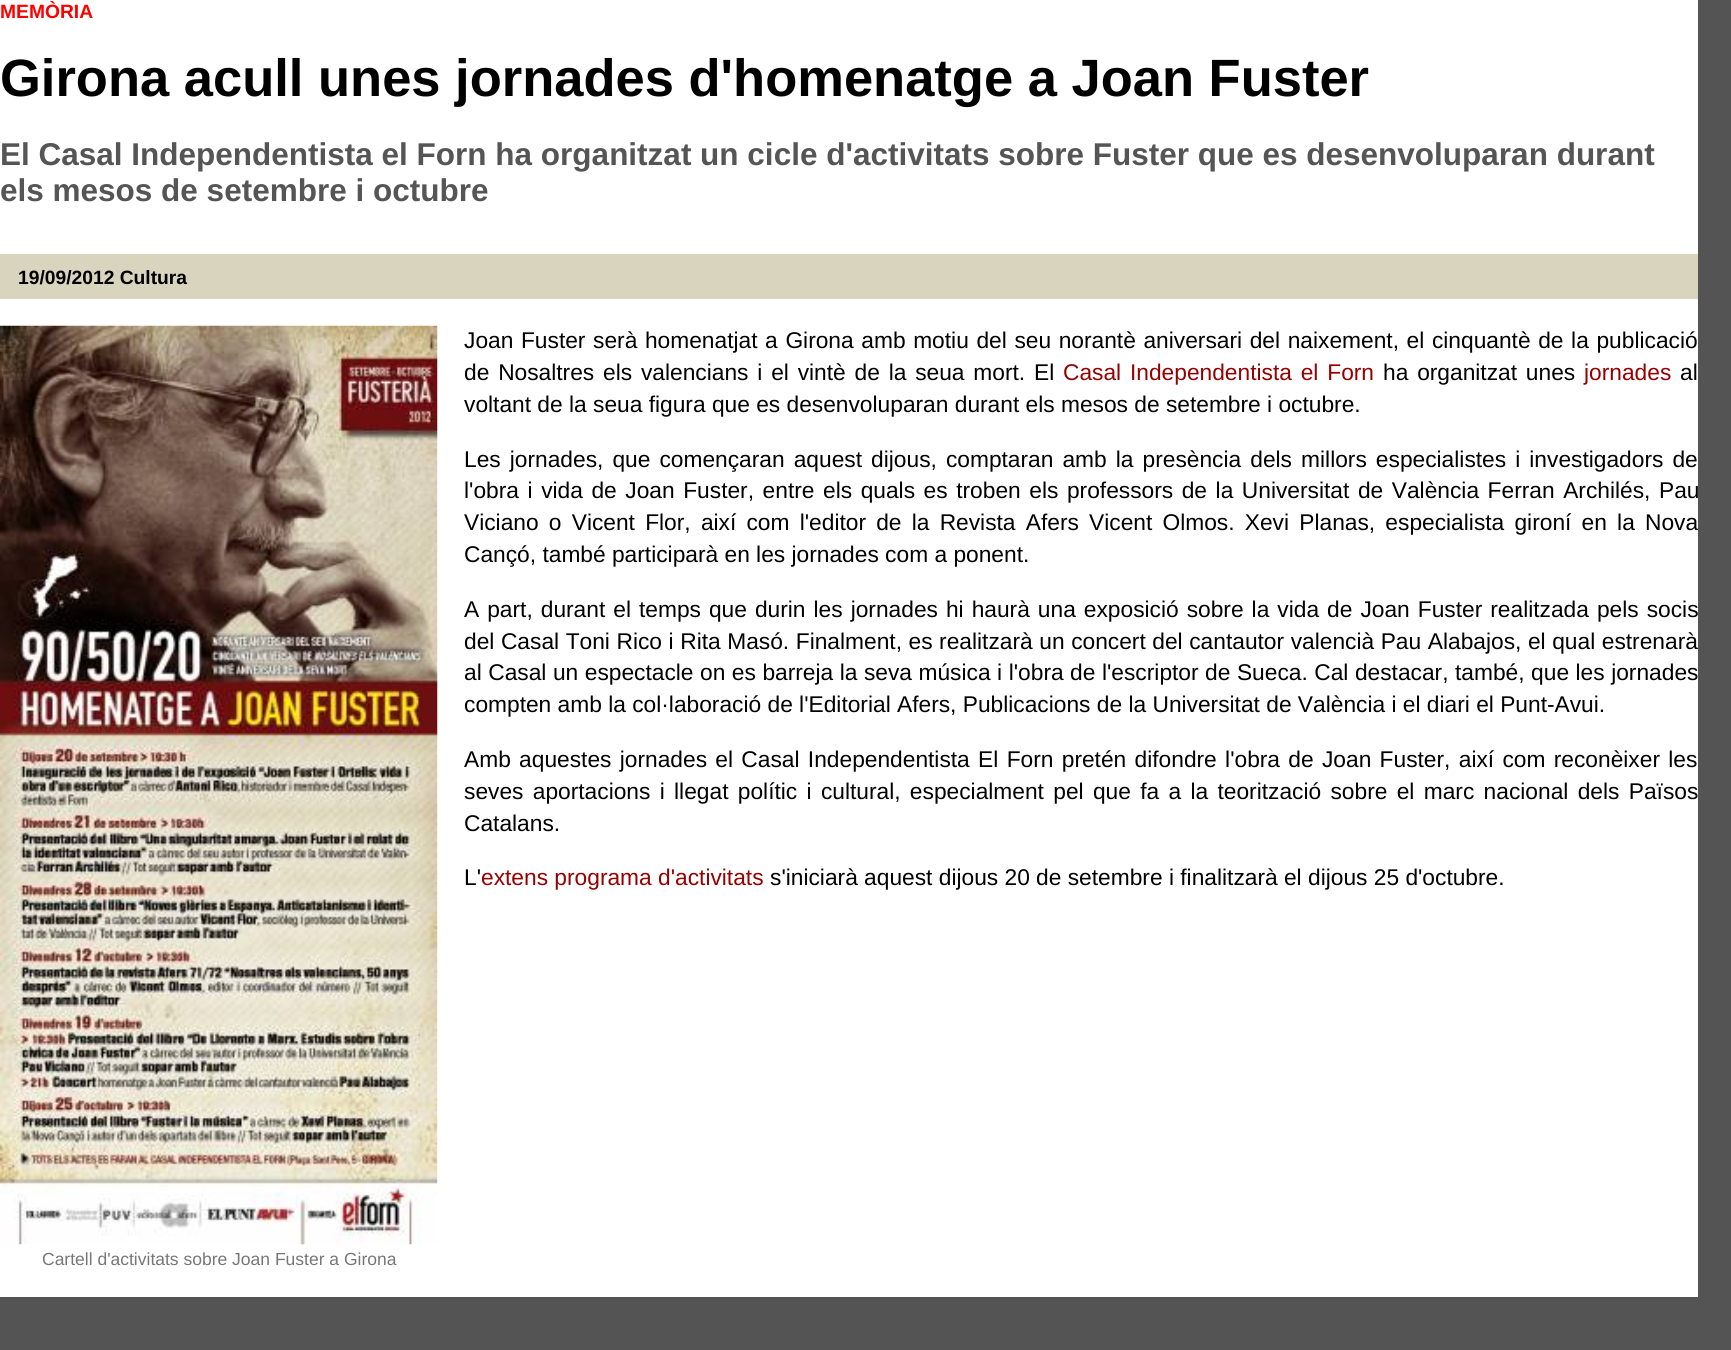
#include <cairo.h>
#include <math.h>
#include <stddef.h>

static cairo_t *c;
static void C(unsigned color){cairo_set_source_rgb(c, (color >> 16) / 255.0, (color >> 8 & 255) / 255.0, (color & 255) / 255.0);}
static void F(const char *family, double size, int italic, int bold){cairo_select_font_face(c, family, italic ? CAIRO_FONT_SLANT_ITALIC : CAIRO_FONT_SLANT_NORMAL,bold ? CAIRO_FONT_WEIGHT_BOLD : CAIRO_FONT_WEIGHT_NORMAL);cairo_set_font_size(c, size);}
static void T(double x, double y, const char *s){cairo_move_to(c, x, y);cairo_show_text(c, s);}
static void L(double x, double y, const char *s, double letter, double word){cairo_move_to(c, x, y);while (*s) {char ch[5] = {0};int n = 0;do ch[n++] = *s++; while ((*s & 0xC0) == 0x80);cairo_show_text(c, ch);cairo_rel_move_to(c, letter + word * (*ch == ' '), 0);}}
static void R(double x, double y, double w, double h){cairo_rectangle(c, x, y, w, h);cairo_fill(c);}
static void I(const char *path, double x, double y, double w, double h){cairo_surface_t *image = cairo_image_surface_create_from_png(path);cairo_save(c);cairo_set_source_surface(c, image, x, y);cairo_rectangle(c, x, y, w, h);cairo_fill(c);cairo_restore(c);cairo_surface_destroy(image);}
int main(void) {
cairo_surface_t *surface = cairo_image_surface_create(CAIRO_FORMAT_RGB24, 1731, 1350);
c = cairo_create(surface);
cairo_font_options_t *options = cairo_font_options_create();
cairo_font_options_set_hint_metrics(options, CAIRO_HINT_METRICS_OFF);
cairo_font_options_set_hint_style(options, CAIRO_HINT_STYLE_NONE);
cairo_set_font_options(c, options);
cairo_set_miter_limit(c, 4);
C(0x545454);
cairo_paint(c);
C(0xffffff);
R(0,0,1698,1297);
F("Liberation Sans",19.25,0,1);
C(0xff0000);
T(0,18,"MEMÒRIA");
F("Liberation Sans",52.5,0,1);
C(0x000000);
T(0,96,"Girona acull unes jornades d'homenatge a Joan Fuster");
F("Liberation Sans",31.5,0,1);
C(0x555555);
T(0,165,"El Casal Independentista el Forn ha organitzat un cicle d'activitats sobre Fuster que es desenvoluparan durant");
T(0,201,"els mesos de setembre i octubre");
C(0xd9d4bd);
R(0,254,1698,45);
F("Liberation Sans",19.25,0,1);
C(0x000000);
T(18,284,"19/09/2012 Cultura");
F("Liberation Sans",22.75,0,0);
L(464,348,"Joan Fuster serà homenatjat a Girona amb motiu del seu norantè aniversari del naixement, el cinquantè de la publicació",0,1.3);
L(464,380,"de Nosaltres els valencians i el vintè de la seua mort. El",0,2.5);
C(0x960000);
L(1063,380,"Casal Independentista el Forn",0,2.5);
C(0x000000);
L(1383,380,"ha organitzat unes",0,2.5);
C(0x960000);
T(1584,380,"jornades");
C(0x000000);
T(1680,380,"al");
T(464,412,"voltant de la seua figura que es desenvoluparan durant els mesos de setembre i octubre.");
L(464,467,"Les jornades, que començaran aquest dijous, comptaran amb la presència dels millors especialistes i investigadors de",0,2.75);
L(464,498,"l'obra i vida de Joan Fuster, entre els quals es troben els professors de la Universitat de València Ferran Archilés, Pau",0,2.25);
L(464,530,"Viciano o Vicent Flor, així com l'editor de la Revista Afers Vicent Olmos. Xevi Planas, especialista gironí en la Nova",0,3.9);
T(464,562,"Cançó, també participarà en les jornades com a ponent.");
L(464,617,"A part, durant el temps que durin les jornades hi haurà una exposició sobre la vida de Joan Fuster realitzada pels socis",0,1.7);
L(464,649,"del Casal Toni Rico i Rita Masó. Finalment, es realitzarà un concert del cantautor valencià Pau Alabajos, el qual estrenarà",0,.25);
L(464,680,"al Casal un espectacle on es barreja la seva música i l'obra de l'escriptor de Sueca. Cal destacar, també, que les jornades",0,.2);
T(464,712,"compten amb la col·laboració de l'Editorial Afers, Publicacions de la Universitat de València i el diari el Punt-Avui.");
L(464,767,"Amb aquestes jornades el Casal Independentista El Forn pretén difondre l'obra de Joan Fuster, així com reconèixer les",0,2);
L(464,799,"seves aportacions i llegat polític i cultural, especialment pel que fa a la teorització sobre el marc nacional dels Països",0,3);
T(464,831,"Catalans.");
T(464,885,"L'");
C(0x960000);
T(481,885,"extens programa d'activitats");
C(0x000000);
T(770,885,"s'iniciarà aquest dijous 20 de setembre i finalitzarà el dijous 25 d'octubre.");
I("1.png",0,325,438,920);
F("Liberation Sans",17.5,0,0);
C(0x777777);
T(42,1265,"Cartell d'activitats sobre Joan Fuster a Girona");
cairo_surface_write_to_png(surface, "o.png");
cairo_font_options_destroy(options);
cairo_destroy(c);
cairo_surface_destroy(surface);
return 0;
}
